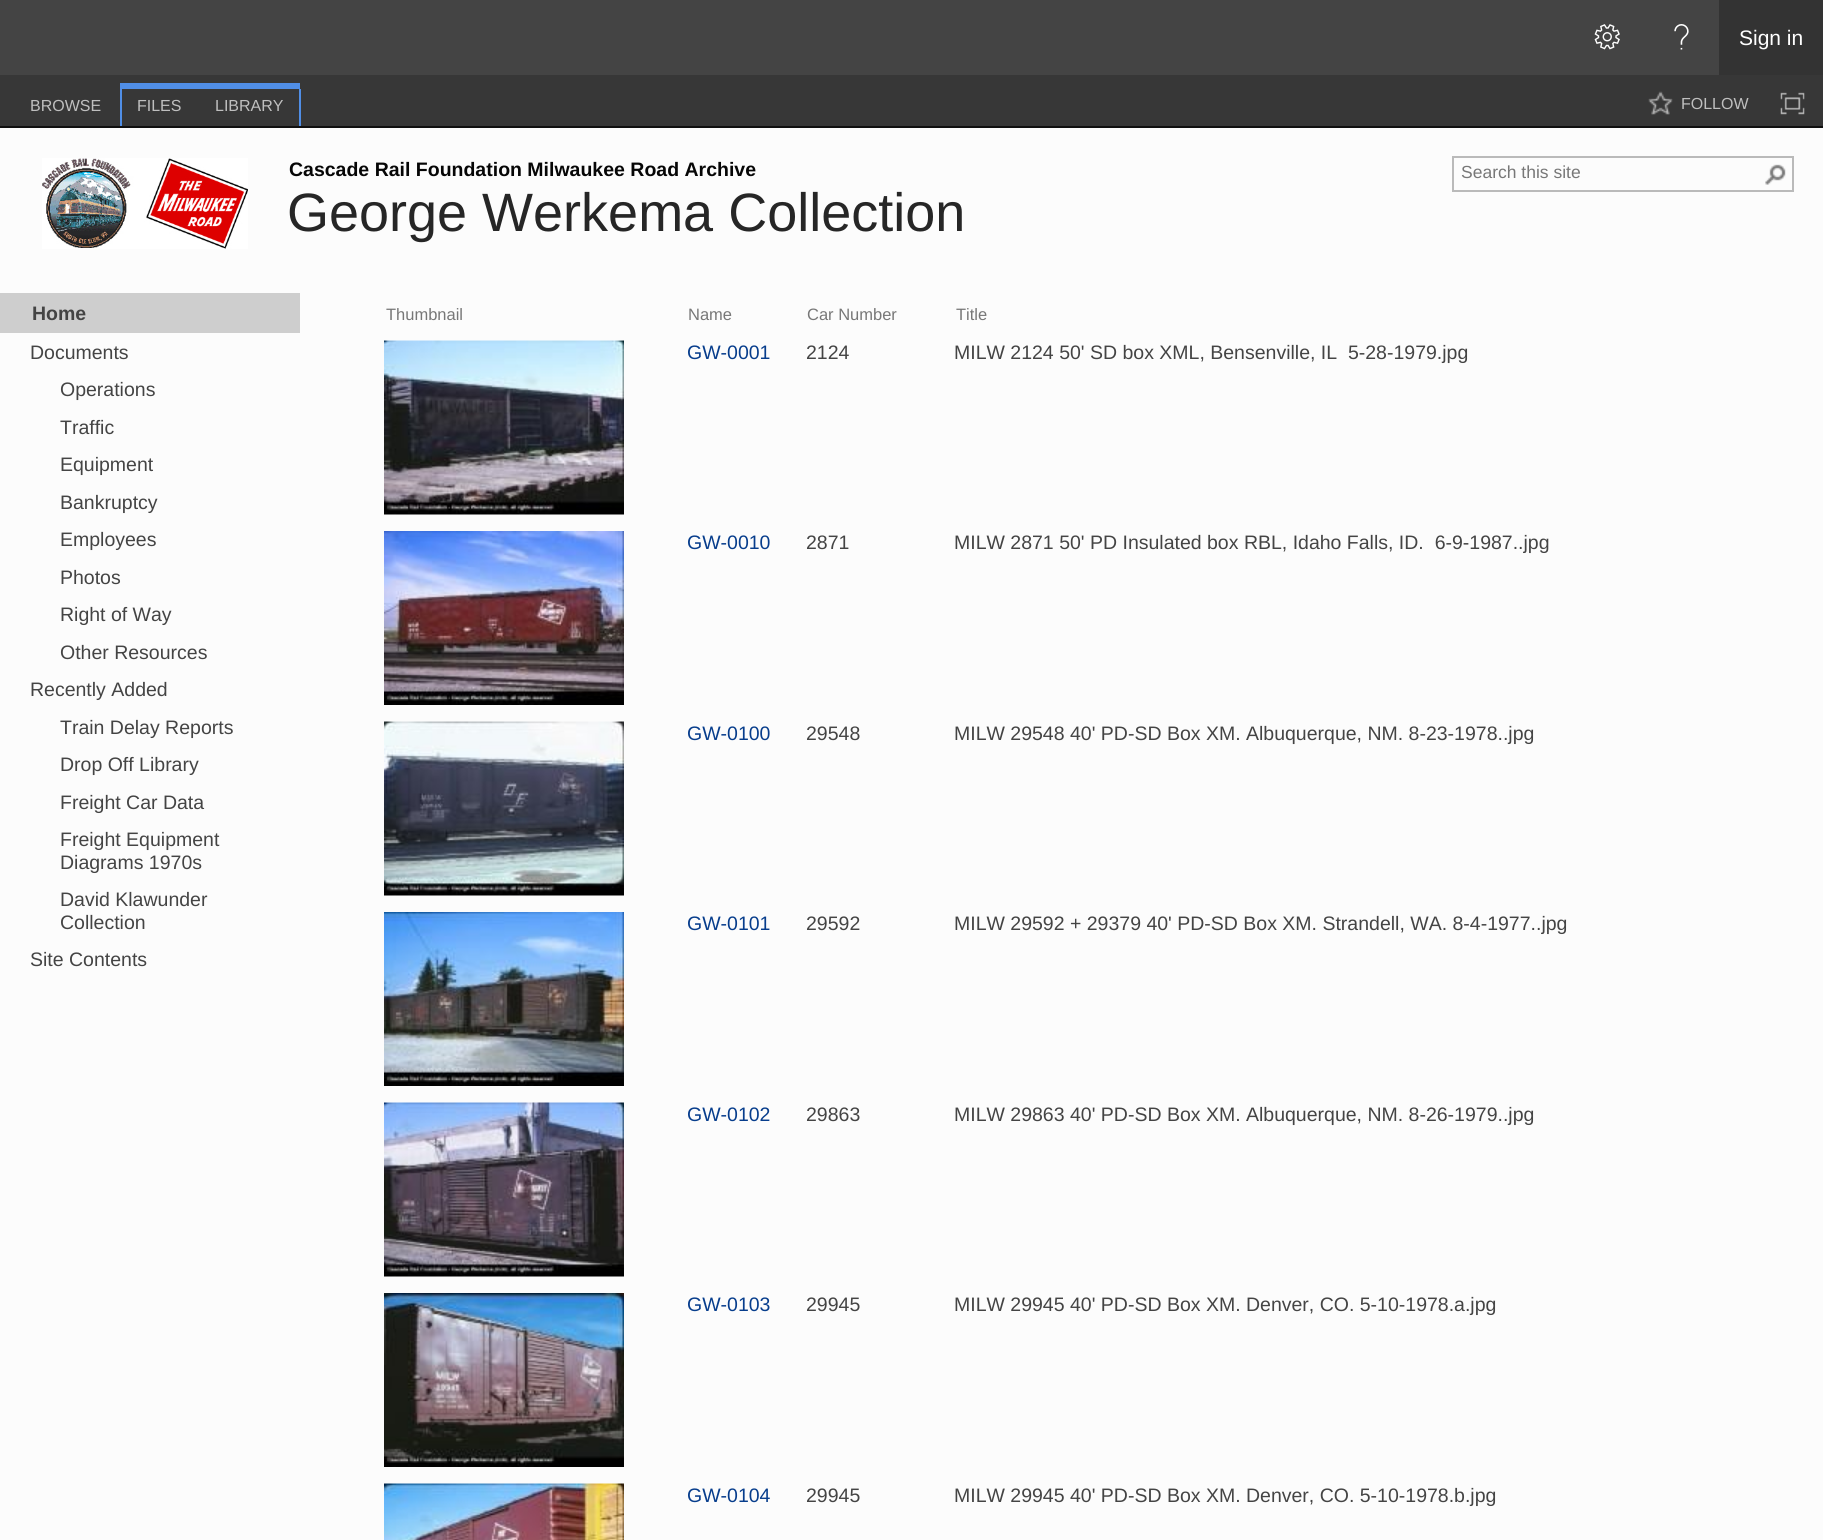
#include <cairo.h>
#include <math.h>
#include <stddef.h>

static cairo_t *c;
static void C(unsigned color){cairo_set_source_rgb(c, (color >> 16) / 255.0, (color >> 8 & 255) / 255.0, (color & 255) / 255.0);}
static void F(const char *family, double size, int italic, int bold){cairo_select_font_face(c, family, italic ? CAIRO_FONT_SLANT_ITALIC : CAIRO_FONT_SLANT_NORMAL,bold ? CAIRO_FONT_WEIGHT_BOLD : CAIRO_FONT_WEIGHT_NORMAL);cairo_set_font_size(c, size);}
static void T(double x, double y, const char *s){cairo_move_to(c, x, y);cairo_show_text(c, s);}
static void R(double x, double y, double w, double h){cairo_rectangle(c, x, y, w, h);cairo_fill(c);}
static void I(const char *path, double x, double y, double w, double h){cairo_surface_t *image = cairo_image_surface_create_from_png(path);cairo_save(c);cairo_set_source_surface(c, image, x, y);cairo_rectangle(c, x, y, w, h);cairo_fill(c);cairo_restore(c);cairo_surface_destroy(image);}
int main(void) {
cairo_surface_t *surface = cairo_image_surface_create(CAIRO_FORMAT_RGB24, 1823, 1540);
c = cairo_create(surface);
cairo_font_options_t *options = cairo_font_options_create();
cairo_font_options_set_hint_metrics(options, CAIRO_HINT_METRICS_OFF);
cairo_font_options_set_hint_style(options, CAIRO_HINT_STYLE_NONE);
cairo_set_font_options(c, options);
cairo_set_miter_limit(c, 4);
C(0xfcfcfc);
cairo_paint(c);
C(0x444444);
R(0,0,1719,75);
I("1.png",1594,24,26,26);
I("2.png",1674,24,15,26);
C(0x333333);
R(1719,0,104,75);
F("Liberation Sans",21,0,0);
C(0xffffff);
T(1739,45,"Sign in");
C(0x373737);
R(0,75,1823,51);
C(0x101010);
R(0,126,1823,2);
F("Liberation Sans",16,0,0);
C(0xbfbfbf);
T(30,111,"BROWSE");
C(0x508ee6);
R(120,83,180,6);
R(120,89,2,37);
C(0xbfbfbf);
T(137,111,"FILES");
C(0x508ee6);
R(299,89,2,37);
C(0xbfbfbf);
T(215,111,"LIBRARY");
I("3.png",1648,91,25,24);
T(1681,109,"FOLLOW");
I("4.png",1780,92,25,23);
I("5.png",42,158,206,91);
F("Liberation Sans",19.5,0,1);
C(0x060606);
T(289,176,"Cascade Rail Foundation Milwaukee Road Archive");
F("Liberation Sans",54,0,0);
C(0x262626);
T(287,231,"George Werkema Collection");
cairo_rectangle(c,1453,157,340,34);
C(0xbababa);
cairo_stroke(c);
F("Liberation Sans",17.5,0,0);
C(0x777777);
T(1461,178,"Search this site");
I("6.png",1765,164,21,21);
C(0xcecece);
R(0,293,300,40);
F("Liberation Sans",19.5,0,1);
C(0x444444);
T(32,320,"Home");
F("Liberation Sans",19.5,0,0);
T(30,359,"Documents");
T(60,396,"Operations");
T(60,434,"Traffic");
T(60,471,"Equipment");
T(60,509,"Bankruptcy");
T(60,546,"Employees");
T(60,584,"Photos");
T(60,621,"Right of Way");
T(60,659,"Other Resources");
T(30,696,"Recently Added");
T(60,734,"Train Delay Reports");
T(60,771,"Drop Off Library");
T(60,809,"Freight Car Data");
T(60,846,"Freight Equipment");
T(60,869,"Diagrams 1970s");
T(60,906,"David Klawunder");
T(60,929,"Collection");
T(30,966,"Site Contents");
F("Liberation Sans",16.5,0,0);
C(0x777777);
T(386,320,"Thumbnail");
T(688,320,"Name");
T(807,320,"Car Number");
T(956,320,"Title");
I("7.png",384,340,240,175);
F("Liberation Sans",19.5,0,0);
C(0x073d8c);
T(687,359,"GW-0001");
C(0x444444);
T(806,359,"2124");
T(954,359,"MILW 2124 50' SD box XML, Bensenville, IL  5-28-1979.jpg");
I("8.png",384,531,240,174);
C(0x073d8c);
T(687,549,"GW-0010");
C(0x444444);
T(806,549,"2871");
T(954,549,"MILW 2871 50' PD Insulated box RBL, Idaho Falls, ID.  6-9-1987..jpg");
I("9.png",384,721,240,175);
C(0x073d8c);
T(687,740,"GW-0100");
C(0x444444);
T(806,740,"29548");
T(954,740,"MILW 29548 40' PD-SD Box XM. Albuquerque, NM. 8-23-1978..jpg");
I("10.png",384,912,240,174);
C(0x073d8c);
T(687,930,"GW-0101");
C(0x444444);
T(806,930,"29592");
T(954,930,"MILW 29592 + 29379 40' PD-SD Box XM. Strandell, WA. 8-4-1977..jpg");
I("11.png",384,1102,240,175);
C(0x073d8c);
T(687,1121,"GW-0102");
C(0x444444);
T(806,1121,"29863");
T(954,1121,"MILW 29863 40' PD-SD Box XM. Albuquerque, NM. 8-26-1979..jpg");
I("12.png",384,1293,240,174);
C(0x073d8c);
T(687,1311,"GW-0103");
C(0x444444);
T(806,1311,"29945");
T(954,1311,"MILW 29945 40' PD-SD Box XM. Denver, CO. 5-10-1978.a.jpg");
I("13.png",384,1483,240,57);
C(0x073d8c);
T(687,1502,"GW-0104");
C(0x444444);
T(806,1502,"29945");
T(954,1502,"MILW 29945 40' PD-SD Box XM. Denver, CO. 5-10-1978.b.jpg");
cairo_surface_write_to_png(surface, "o.png");
cairo_font_options_destroy(options);
cairo_destroy(c);
cairo_surface_destroy(surface);
return 0;
}
